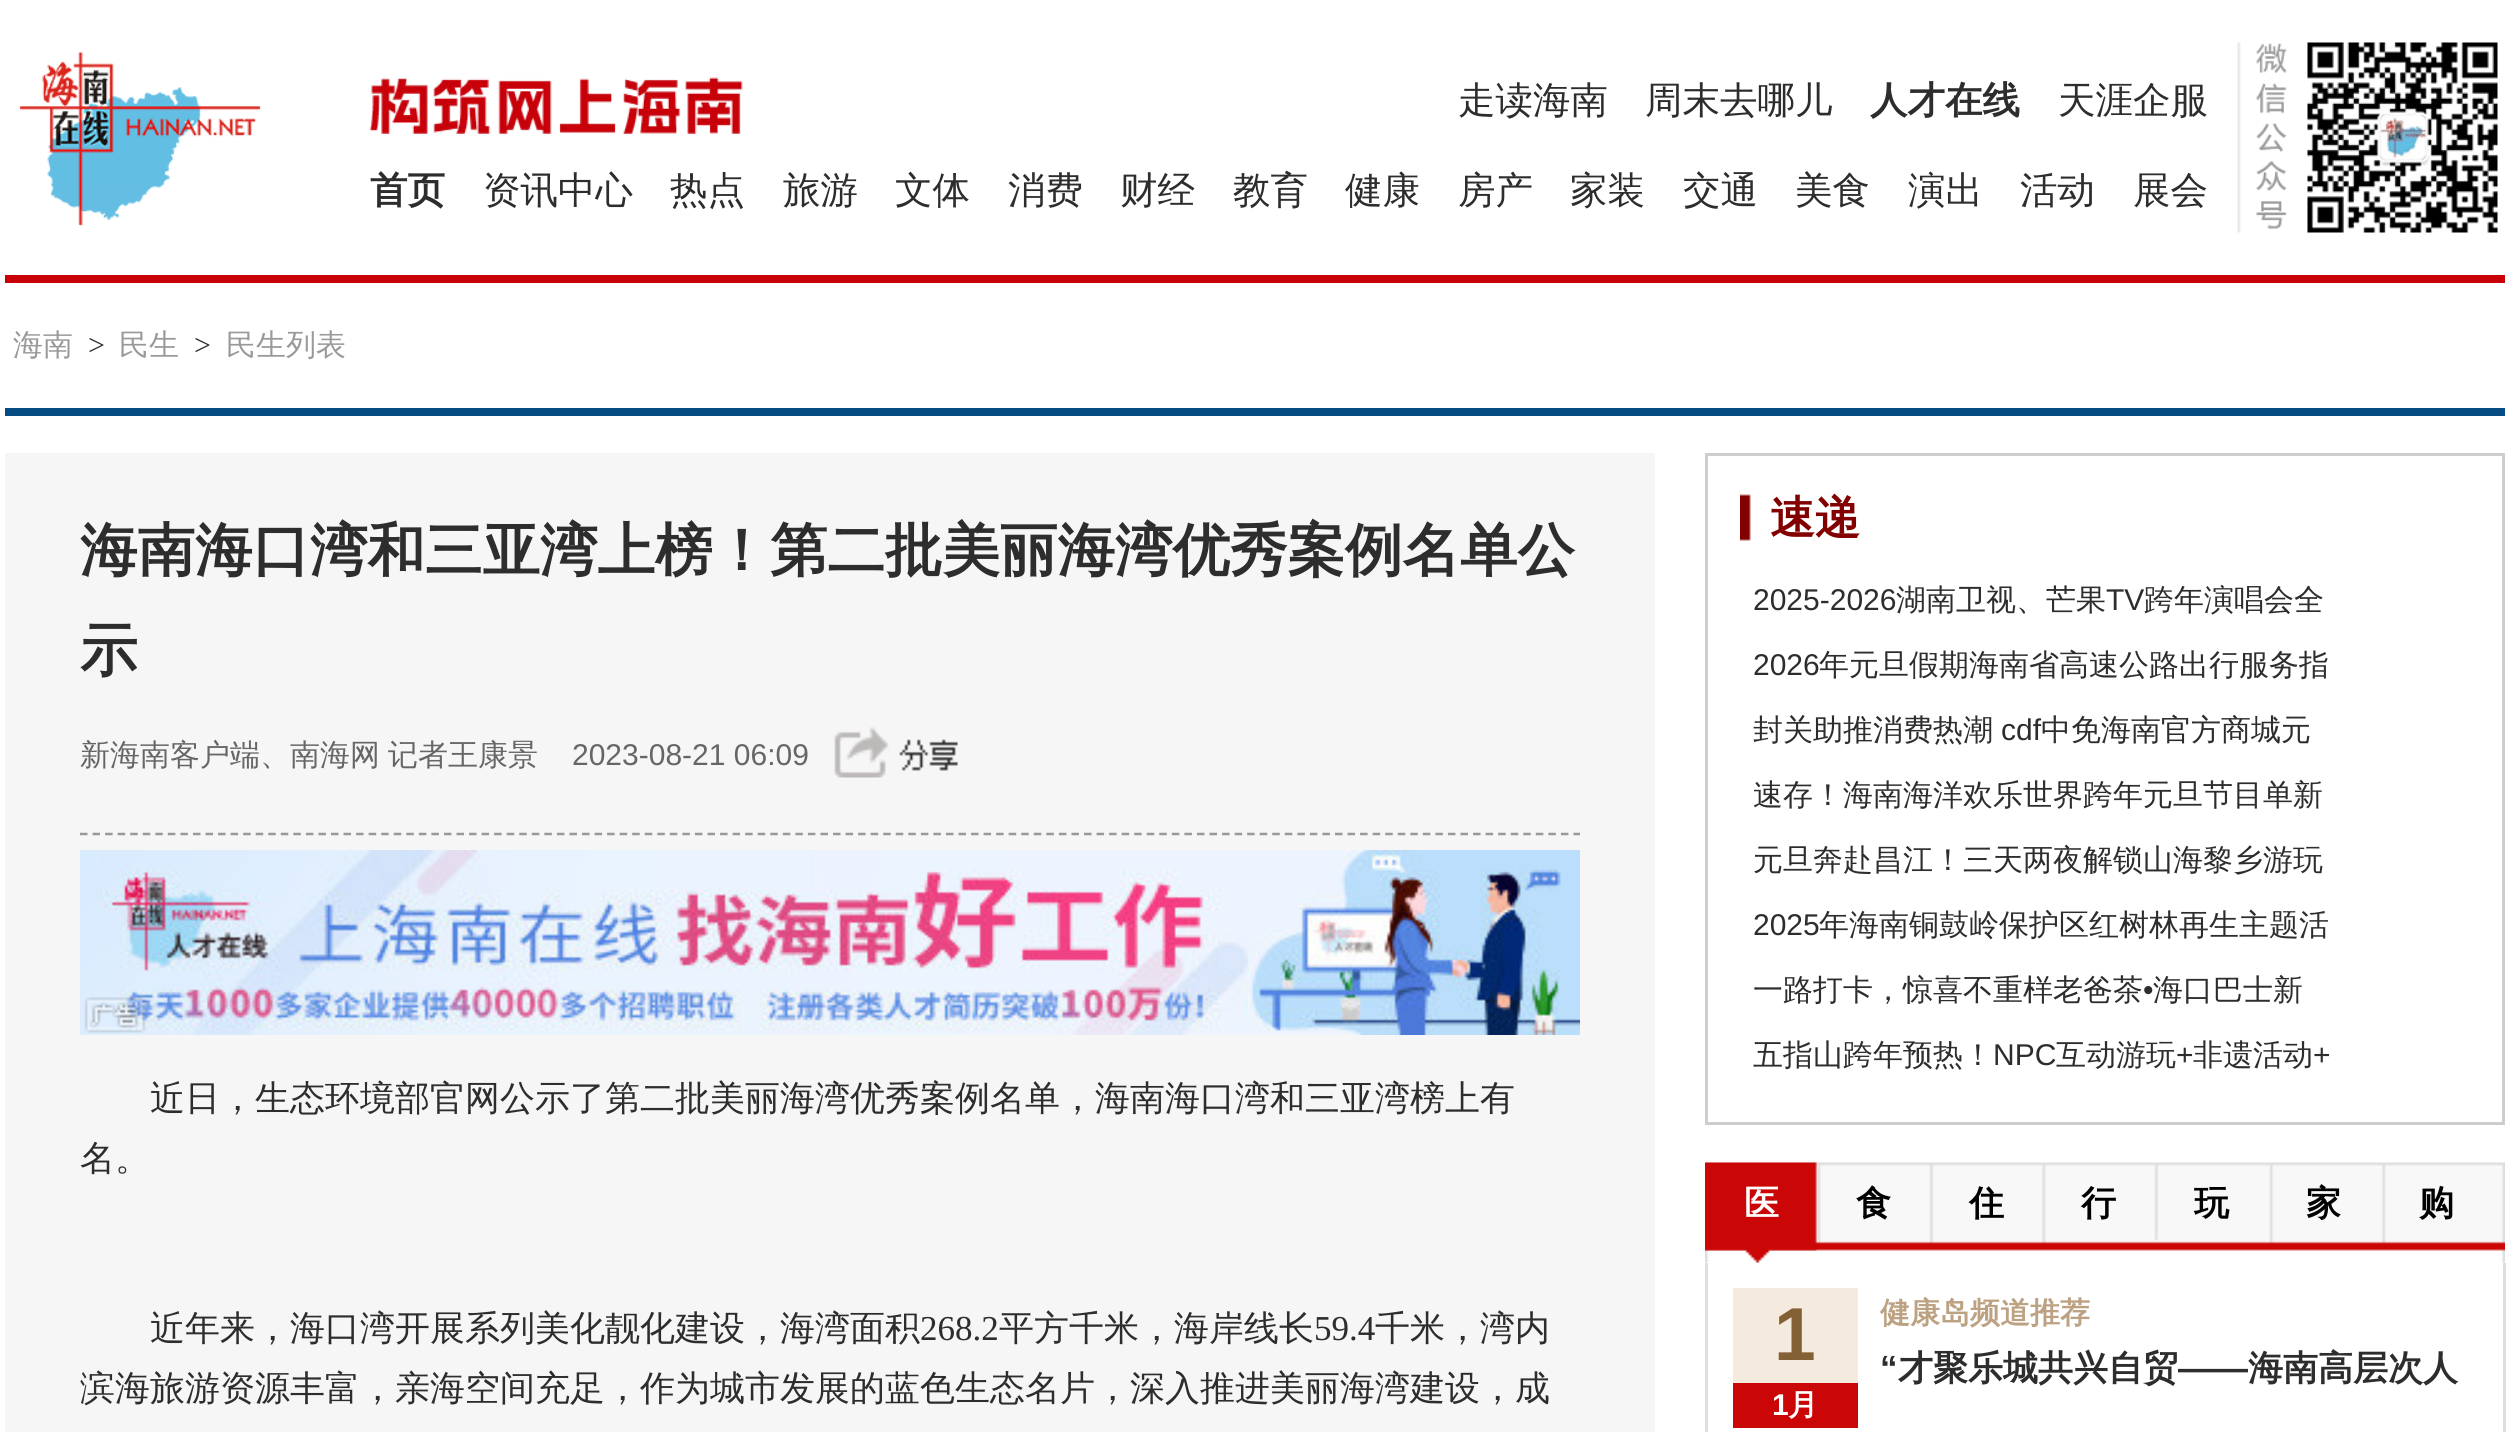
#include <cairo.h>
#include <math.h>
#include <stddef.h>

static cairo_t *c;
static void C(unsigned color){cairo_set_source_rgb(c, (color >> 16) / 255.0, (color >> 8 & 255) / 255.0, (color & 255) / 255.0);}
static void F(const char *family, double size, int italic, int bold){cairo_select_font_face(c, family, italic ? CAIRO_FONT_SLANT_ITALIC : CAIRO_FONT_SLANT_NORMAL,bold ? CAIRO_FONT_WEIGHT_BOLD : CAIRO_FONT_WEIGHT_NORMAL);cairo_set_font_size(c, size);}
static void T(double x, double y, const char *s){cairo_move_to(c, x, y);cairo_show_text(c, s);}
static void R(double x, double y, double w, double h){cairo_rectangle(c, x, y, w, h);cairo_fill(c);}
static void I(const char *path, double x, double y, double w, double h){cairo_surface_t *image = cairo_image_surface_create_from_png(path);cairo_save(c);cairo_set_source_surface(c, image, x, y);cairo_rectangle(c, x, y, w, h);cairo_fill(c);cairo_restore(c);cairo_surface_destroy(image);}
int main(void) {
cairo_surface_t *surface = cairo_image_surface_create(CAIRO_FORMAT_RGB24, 2509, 1432);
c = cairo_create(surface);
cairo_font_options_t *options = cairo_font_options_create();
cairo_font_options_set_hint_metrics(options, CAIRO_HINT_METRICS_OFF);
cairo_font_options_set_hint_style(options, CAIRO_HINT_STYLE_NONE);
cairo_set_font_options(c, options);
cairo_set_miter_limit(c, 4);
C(0xffffff);
cairo_paint(c);
I("1.png",2237,42,261,191);
C(0xc80009);
R(5,275,2500,8);
I("2.png",19,52,242,174);
I("3.png",370,77,373,57);
F("WenQuanYi Zen Hei Medium",37.5,0,0);
C(0x2d2d2d);
T(1458,113,"走读海南");
T(1645,113,"周末去哪儿");
F("WenQuanYi Zen Hei",37.5,0,1);
T(1870,113,"人才在线");
F("WenQuanYi Zen Hei Medium",37.5,0,0);
T(2058,113,"天涯企服");
F("WenQuanYi Zen Hei",37.5,0,1);
T(370,203,"首页");
F("WenQuanYi Zen Hei Medium",37.5,0,0);
T(483,203,"资讯中心");
T(670,203,"热点");
T(783,203,"旅游");
T(895,203,"文体");
T(1008,203,"消费");
T(1120,203,"财经");
T(1233,203,"教育");
T(1345,203,"健康");
T(1458,203,"房产");
T(1570,203,"家装");
T(1683,203,"交通");
T(1795,203,"美食");
T(1908,203,"演出");
T(2020,203,"活动");
T(2133,203,"展会");
C(0x044c82);
R(5,408,2500,8);
F("WenQuanYi Zen Hei Medium",30,0,0);
C(0x999999);
T(13,355,"海南");
F("Liberation Serif",30,0,0);
C(0x2d2d2d);
T(88,355,">");
F("WenQuanYi Zen Hei Medium",30,0,0);
C(0x999999);
T(119,355,"民生");
F("Liberation Serif",30,0,0);
C(0x2d2d2d);
T(194,355,">");
F("WenQuanYi Zen Hei Medium",30,0,0);
C(0x999999);
T(226,355,"民生列表");
C(0xf6f6f6);
R(5,453,1650,979);
F("WenQuanYi Zen Hei",57.5,0,1);
C(0x2d2d2d);
T(80,570,"海南海口湾和三亚湾上榜！第二批美丽海湾优秀案例名单公");
T(80,670,"示");
F("WenQuanYi Zen Hei Medium",30,0,0);
C(0x666666);
T(80,765,"新海南客户端、南海网");
T(388,765,"记者王康景");
F("Liberation Sans",30,0,0);
T(572,765,"2023-08-21 06:09");
I("4.png",834,727,124,51);
cairo_new_path(c);
cairo_move_to(c,80,834);
cairo_line_to(c,1580,834);
C(0x999999);
cairo_set_line_width(c,2.5);
cairo_set_dash(c,(double[]){7.5,5.05},2,0);
cairo_stroke(c);
I("5.png",80,850,1500,185);
I("6.png",84,997,62,36);
F("WenQuanYi Zen Hei Medium",35,0,0);
C(0x2d2d2d);
T(150,1110,"近日，生态环境部官网公示了第二批美丽海湾优秀案例名单，海南海口湾和三亚湾榜上有");
T(80,1170,"名。");
T(150,1340,"近年来，海口湾开展系列美化靓化建设，海湾面积");
F("Liberation Serif",35,0,0);
T(920,1340,"268.2");
F("WenQuanYi Zen Hei Medium",35,0,0);
T(999,1340,"平方千米，海岸线长");
F("Liberation Serif",35,0,0);
T(1314,1340,"59.4");
F("WenQuanYi Zen Hei Medium",35,0,0);
T(1375,1340,"千米，湾内");
T(80,1400,"滨海旅游资源丰富，亲海空间充足，作为城市发展的蓝色生态名片，深入推进美丽海湾建设，成");
cairo_rectangle(c,1706.5,454.5,797,669);
C(0xcdcdcd);
cairo_set_line_width(c,3);
cairo_set_dash(c,NULL,0,0);
cairo_stroke(c);
I("7.png",1740,494,11,47);
F("WenQuanYi Zen Hei",45,0,1);
C(0x830000);
T(1770,533,"速递");
F("Liberation Sans",30,0,0);
C(0x2d2d2d);
T(1753,610,"2025-2026");
F("WenQuanYi Zen Hei Medium",30,0,0);
T(1896,610,"湖南卫视、芒果");
F("Liberation Sans",30,0,0);
T(2106,610,"TV");
F("WenQuanYi Zen Hei Medium",30,0,0);
T(2144,610,"跨年演唱会全");
F("Liberation Sans",30,0,0);
T(1753,675,"2026");
F("WenQuanYi Zen Hei Medium",30,0,0);
T(1819,675,"年元旦假期海南省高速公路出行服务指");
T(1753,740,"封关助推消费热潮");
F("Liberation Sans",30,0,0);
T(2001,740,"cdf");
F("WenQuanYi Zen Hei Medium",30,0,0);
T(2041,740,"中免海南官方商城元");
T(1753,805,"速存！海南海洋欢乐世界跨年元旦节目单新");
T(1753,870,"元旦奔赴昌江！三天两夜解锁山海黎乡游玩");
F("Liberation Sans",30,0,0);
T(1753,935,"2025");
F("WenQuanYi Zen Hei Medium",30,0,0);
T(1819,935,"年海南铜鼓岭保护区红树林再生主题活");
T(1753,1000,"一路打卡，惊喜不重样老爸茶");
F("Liberation Sans",30,0,0);
T(2143,1000,"•");
F("WenQuanYi Zen Hei Medium",30,0,0);
T(2153,1000,"海口巴士新");
T(1753,1065,"五指山跨年预热！");
F("Liberation Sans",30,0,0);
T(1993,1065,"NPC");
F("WenQuanYi Zen Hei Medium",30,0,0);
T(2056,1065,"互动游玩");
F("Liberation Sans",30,0,0);
T(2176,1065,"+");
F("WenQuanYi Zen Hei Medium",30,0,0);
T(2193,1065,"非遗活动");
F("Liberation Sans",30,0,0);
T(2313,1065,"+");
I("8.png",1705,1162,800,101);
I("9.png",1705,1162,112,101);
F("WenQuanYi Zen Hei",35,0,1);
C(0xffffff);
T(1744,1215,"医");
C(0x000000);
T(1856,1215,"食");
T(1969,1215,"住");
T(2081,1215,"行");
T(2194,1215,"玩");
T(2306,1215,"家");
T(2419,1215,"购");
C(0xdedede);
R(2503,1263,3,169);
R(1705,1263,3,169);
C(0xf5eade);
R(1733,1288,125,95);
F("Liberation Sans",75,0,1);
C(0x846035);
T(1774,1360,"1");
C(0xca0606);
R(1733,1383,125,45);
F("Liberation Sans",30,0,1);
C(0xffffff);
T(1772,1415,"1");
F("WenQuanYi Zen Hei",30,0,1);
T(1788,1415,"月");
C(0xbca283);
T(1880,1323,"健康岛频道推荐");
F("Liberation Sans",35,0,1);
C(0x2d2d2d);
T(1880,1380,"“");
F("WenQuanYi Zen Hei",35,0,1);
T(1898,1380,"才聚乐城共兴自贸");
T(2248,1380,"海南高层次人");
F("Liberation Sans",35,0,1);
T(2178,1380,"——");
cairo_surface_write_to_png(surface, "o.png");
cairo_font_options_destroy(options);
cairo_destroy(c);
cairo_surface_destroy(surface);
return 0;
}
